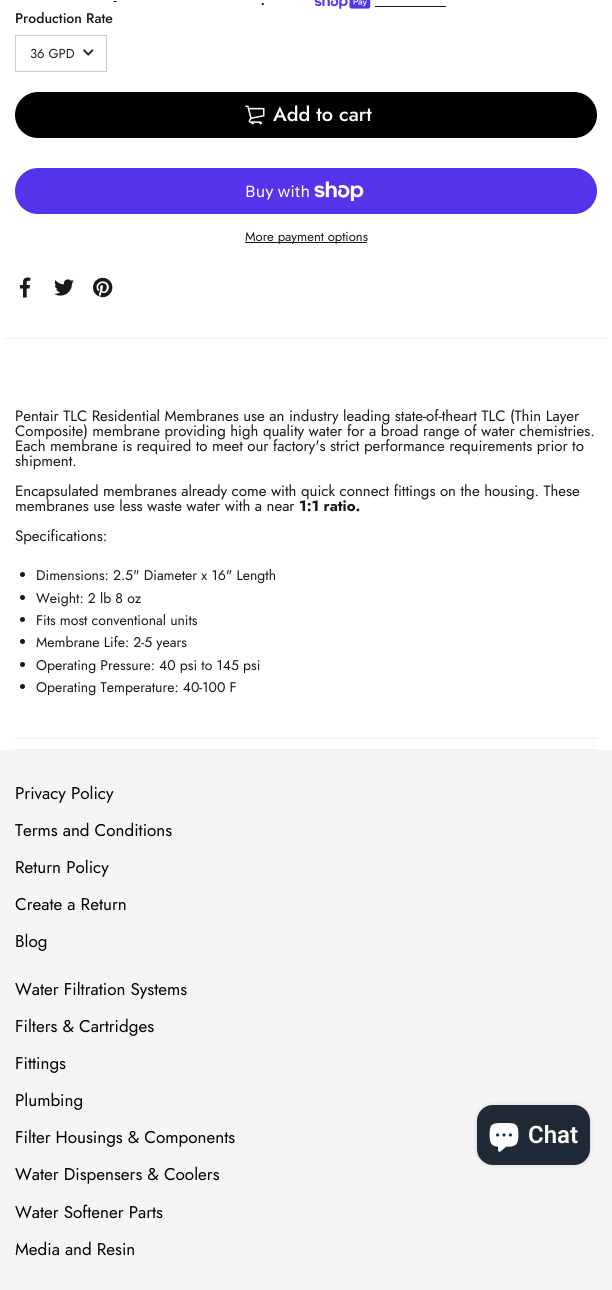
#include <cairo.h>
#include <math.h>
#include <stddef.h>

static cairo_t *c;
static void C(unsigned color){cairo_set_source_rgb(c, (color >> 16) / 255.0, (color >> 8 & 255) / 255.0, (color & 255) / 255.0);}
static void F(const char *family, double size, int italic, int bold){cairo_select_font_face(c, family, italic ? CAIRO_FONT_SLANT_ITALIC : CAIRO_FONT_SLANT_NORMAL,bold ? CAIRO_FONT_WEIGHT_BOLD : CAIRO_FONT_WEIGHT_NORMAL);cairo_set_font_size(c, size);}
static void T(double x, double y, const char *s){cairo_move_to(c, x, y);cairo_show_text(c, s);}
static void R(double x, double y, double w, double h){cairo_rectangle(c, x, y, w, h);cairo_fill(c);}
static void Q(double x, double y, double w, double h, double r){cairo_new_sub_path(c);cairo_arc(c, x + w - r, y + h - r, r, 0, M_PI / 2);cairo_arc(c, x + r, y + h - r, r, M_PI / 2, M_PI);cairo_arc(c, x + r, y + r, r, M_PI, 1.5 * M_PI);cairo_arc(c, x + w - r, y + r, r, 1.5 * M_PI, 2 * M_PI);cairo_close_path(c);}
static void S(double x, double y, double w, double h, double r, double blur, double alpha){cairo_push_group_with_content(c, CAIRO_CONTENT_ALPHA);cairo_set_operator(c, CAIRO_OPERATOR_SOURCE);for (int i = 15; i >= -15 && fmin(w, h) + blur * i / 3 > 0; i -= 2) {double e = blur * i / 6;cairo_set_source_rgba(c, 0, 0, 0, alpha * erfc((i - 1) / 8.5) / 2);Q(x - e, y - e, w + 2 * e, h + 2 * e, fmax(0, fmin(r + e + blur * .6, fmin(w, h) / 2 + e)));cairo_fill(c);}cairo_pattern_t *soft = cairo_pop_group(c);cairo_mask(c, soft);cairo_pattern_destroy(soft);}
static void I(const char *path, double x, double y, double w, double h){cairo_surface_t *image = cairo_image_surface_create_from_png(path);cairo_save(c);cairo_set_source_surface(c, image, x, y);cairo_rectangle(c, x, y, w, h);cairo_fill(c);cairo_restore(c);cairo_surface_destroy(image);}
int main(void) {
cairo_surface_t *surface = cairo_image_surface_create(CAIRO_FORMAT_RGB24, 612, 1290);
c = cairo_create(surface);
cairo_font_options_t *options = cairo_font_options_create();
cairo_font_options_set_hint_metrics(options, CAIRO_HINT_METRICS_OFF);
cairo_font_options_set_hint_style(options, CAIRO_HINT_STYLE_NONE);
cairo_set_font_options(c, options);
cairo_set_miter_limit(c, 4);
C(0xffffff);
cairo_paint(c);
F("Noto Sans",13,0,0);
C(0x191919);
T(113,5,"-");
I("1.png",314,0,57,9);
F("Noto Sans",13,0,1);
T(261,5,".");
R(375,6,71,1);
F("Jost Medium",14,0,0);
T(15,23,"Production Rate");
I("2.png",83,49,11,7);
cairo_rectangle(c,15.5,35.5,91,36);
C(0xcccccc);
cairo_set_line_width(c,1);
cairo_stroke(c);
F("Jost",13,0,0);
C(0x222222);
T(30,58,"36 GPD");
C(0x000000);
Q(15,92,582,46,23);
cairo_fill(c);
I("3.png",245,105,20,20);
F("Jost Medium",20,0,0);
C(0xffffff);
T(273,121,"Add to cart");
C(0x5433eb);
Q(15,168,582,46,23);
cairo_fill(c);
F("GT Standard",16,0,0);
C(0xffffff);
T(245,197,"Buy with");
I("4.png",314,181,50,20);
C(0x191919);
R(245,242,122,1);
F("Jost",13,0,0);
T(245,241,"More payment options");
I("5.png",20,277,11,21);
I("6.png",54,279,20,17);
I("7.png",93,277,20,21);
C(0xeeeeee);
R(5,338,602,1);
F("Jost",15,0,0);
C(0x191919);
T(15,421,"Pentair TLC Residential Membranes use an industry leading state-of-theart TLC (Thin Layer");
T(15,436,"Composite) membrane providing high quality water for a broad range of water chemistries.");
T(15,451,"Each membrane is required to meet our factory's strict performance requirements prior to");
T(15,466,"shipment.");
T(15,496,"Encapsulated membranes already come with quick connect fittings on the housing. These");
T(15,511,"membranes use less waste water with a near");
F("Jost",15,0,1);
T(299,511,"1:1 ratio.");
F("Jost",15,0,0);
T(15,541,"Specifications:");
cairo_new_path(c);
cairo_arc(c,22.5,574.5,2.5,0,2 * M_PI);
cairo_fill(c);
F("Jost",14,0,0);
T(36,580,"Dimensions: 2.5\" Diameter x 16\" Length");
cairo_new_path(c);
cairo_arc(c,22.5,597.5,2.5,0,2 * M_PI);
cairo_fill(c);
T(36,603,"Weight: 2 lb 8 oz");
cairo_new_path(c);
cairo_arc(c,22.5,619.5,2.5,0,2 * M_PI);
cairo_fill(c);
T(36,625,"Fits most conventional units");
cairo_new_path(c);
cairo_arc(c,22.5,641.5,2.5,0,2 * M_PI);
cairo_fill(c);
T(36,647,"Membrane Life: 2-5 years");
cairo_new_path(c);
cairo_arc(c,22.5,664.5,2.5,0,2 * M_PI);
cairo_fill(c);
T(36,670,"Operating Pressure: 40 psi to 145 psi");
cairo_new_path(c);
cairo_arc(c,22.5,686.5,2.5,0,2 * M_PI);
cairo_fill(c);
T(36,692,"Operating Temperature: 40-100 F");
C(0xeeeeee);
R(15,738,582,1);
R(15,749,582,1);
C(0xf5f5f5);
R(0,750,612,540);
F("Jost",17,0,0);
C(0x000000);
T(15,799,"Privacy Policy");
T(15,836,"Terms and Conditions");
T(15,873,"Return Policy");
T(15,910,"Create a Return");
T(15,947,"Blog");
T(15,995,"Water Filtration Systems");
T(15,1032,"Filters & Cartridges");
T(15,1069,"Fittings");
T(15,1106,"Plumbing");
T(15,1143,"Filter Housings & Components");
T(15,1180,"Water Dispensers & Coolers");
T(15,1218,"Water Softener Parts");
T(15,1255,"Media and Resin");
C(0x000000);
S(477,1105,113,60,16,2.5,.15);
C(0x202a36);
Q(477,1105,113,60,16);
cairo_fill(c);
I("8.png",489,1123,30,29);
F("Roboto SemiBold",24,0,0);
C(0xffffff);
T(528,1143,"Chat");
cairo_surface_write_to_png(surface, "o.png");
cairo_font_options_destroy(options);
cairo_destroy(c);
cairo_surface_destroy(surface);
return 0;
}
